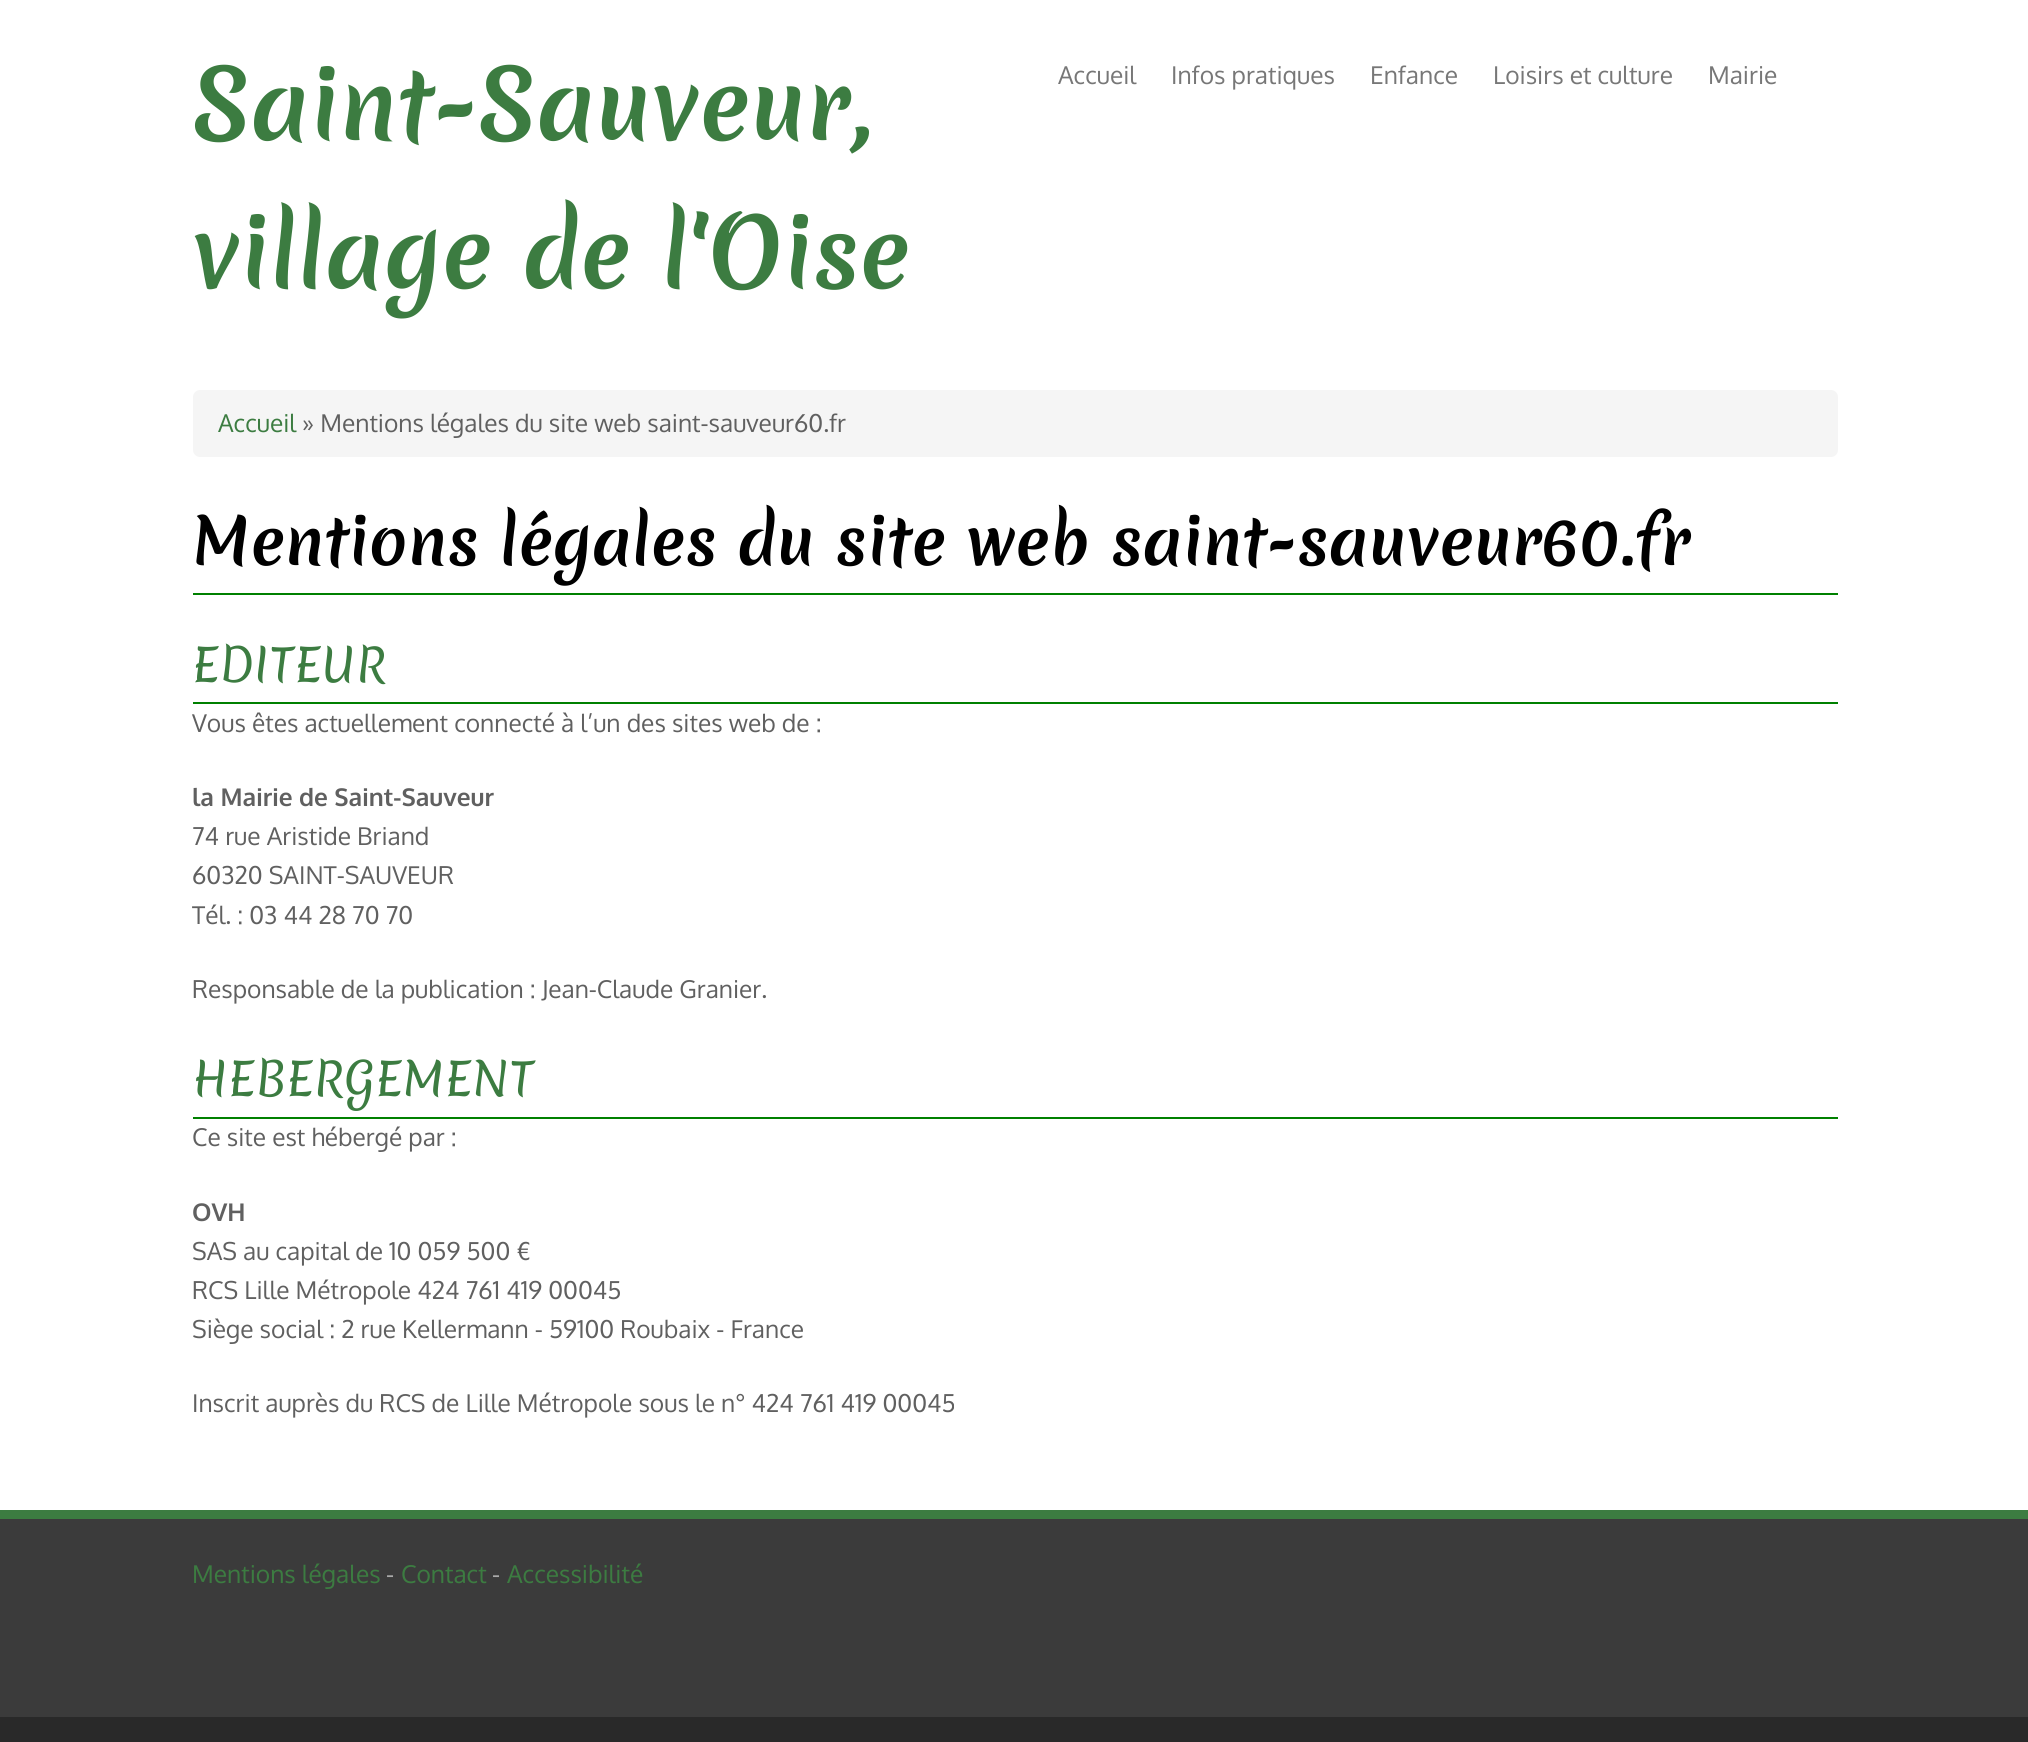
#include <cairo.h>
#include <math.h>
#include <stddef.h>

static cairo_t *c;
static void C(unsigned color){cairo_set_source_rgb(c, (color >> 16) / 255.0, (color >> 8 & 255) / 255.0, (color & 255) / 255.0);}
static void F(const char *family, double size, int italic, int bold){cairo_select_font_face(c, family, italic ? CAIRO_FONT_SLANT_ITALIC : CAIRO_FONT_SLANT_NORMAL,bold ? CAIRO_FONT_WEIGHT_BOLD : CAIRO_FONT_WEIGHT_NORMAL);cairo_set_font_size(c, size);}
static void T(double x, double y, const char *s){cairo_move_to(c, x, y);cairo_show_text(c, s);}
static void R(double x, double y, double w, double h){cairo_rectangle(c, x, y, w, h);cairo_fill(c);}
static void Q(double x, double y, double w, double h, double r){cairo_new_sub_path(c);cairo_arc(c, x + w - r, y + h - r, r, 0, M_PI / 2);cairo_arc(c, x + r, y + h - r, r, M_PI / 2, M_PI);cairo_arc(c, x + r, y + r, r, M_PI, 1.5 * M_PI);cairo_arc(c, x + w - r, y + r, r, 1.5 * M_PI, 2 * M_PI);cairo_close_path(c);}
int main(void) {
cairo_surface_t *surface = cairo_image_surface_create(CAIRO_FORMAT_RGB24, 2028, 1742);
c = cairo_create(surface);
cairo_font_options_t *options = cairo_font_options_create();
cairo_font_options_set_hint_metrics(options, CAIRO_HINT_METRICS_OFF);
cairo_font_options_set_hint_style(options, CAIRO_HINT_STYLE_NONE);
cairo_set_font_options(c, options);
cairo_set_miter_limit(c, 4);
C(0xffffff);
cairo_paint(c);
F("Merienda",92.75,0,1);
C(0x3c7c41);
T(192,140,"Saint-Sauveur,");
T(192,288,"village de l'Oise");
F("Oxygen",24.5,0,0);
C(0x777777);
T(1058,84,"Accueil");
T(1171,84,"Infos pratiques");
T(1370,84,"Enfance");
T(1493,84,"Loisirs et culture");
T(1708,84,"Mairie");
C(0xf5f5f5);
Q(193,390,1645,67,7);
cairo_fill(c);
C(0x3c7c41);
T(218,432,"Accueil");
C(0x606060);
T(302,432,"» Mentions légales du site web saint-sauveur60.fr");
C(0x008000);
R(193,593,1645,2);
F("Merienda",63,0,1);
C(0x000000);
T(192,565,"Mentions légales du site web saint-sauveur60.fr");
C(0x008000);
R(193,702,1645,2);
F("Merienda",45.5,0,0);
C(0x3c7c41);
T(192,682,"EDITEUR");
F("Oxygen",24.5,0,0);
C(0x606060);
T(192,732,"Vous êtes actuellement connecté à l’un des sites web de :");
F("Oxygen",24.5,0,1);
T(192,806,"la Mairie de Saint-Sauveur");
F("Oxygen",24.5,0,0);
T(192,845,"74 rue Aristide Briand");
T(192,884,"60320 SAINT-SAUVEUR");
T(192,924,"Tél. : 03 44 28 70 70");
T(192,998,"Responsable de la publication : Jean-Claude Granier.");
C(0x008000);
R(193,1117,1645,2);
F("Merienda",45.5,0,0);
C(0x3c7c41);
T(192,1096,"HEBERGEMENT");
F("Oxygen",24.5,0,0);
C(0x606060);
T(192,1146,"Ce site est hébergé par :");
F("Oxygen",24.5,0,1);
T(192,1221,"OVH");
F("Oxygen",24.5,0,0);
T(192,1260,"SAS au capital de 10 059 500 €");
T(192,1299,"RCS Lille Métropole 424 761 419 00045");
T(192,1338,"Siège social : 2 rue Kellermann - 59100 Roubaix - France");
T(192,1412,"Inscrit auprès du RCS de Lille Métropole sous le n° 424 761 419 00045");
C(0x3b3b3b);
R(0,1519,2028,198);
C(0x3c7c41);
R(0,1510,2028,9);
T(192,1583,"Mentions légales");
C(0xaaaaaa);
T(386,1583,"-");
C(0x3c7c41);
T(401,1583,"Contact");
C(0xaaaaaa);
T(492,1583,"-");
C(0x3c7c41);
T(507,1583,"Accessibilité");
C(0x292929);
R(0,1717,2028,25);
cairo_surface_write_to_png(surface, "o.png");
cairo_font_options_destroy(options);
cairo_destroy(c);
cairo_surface_destroy(surface);
return 0;
}
